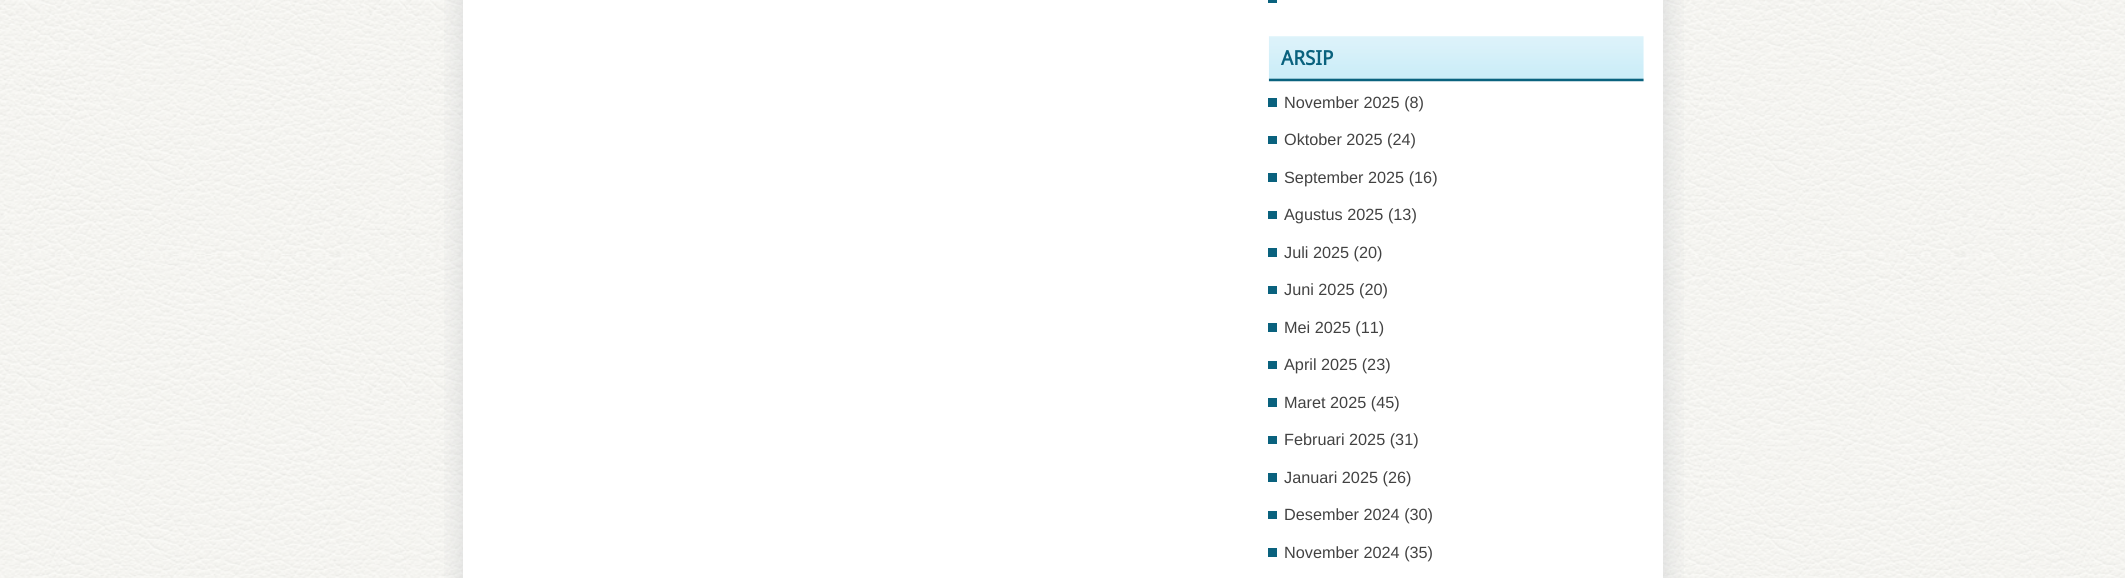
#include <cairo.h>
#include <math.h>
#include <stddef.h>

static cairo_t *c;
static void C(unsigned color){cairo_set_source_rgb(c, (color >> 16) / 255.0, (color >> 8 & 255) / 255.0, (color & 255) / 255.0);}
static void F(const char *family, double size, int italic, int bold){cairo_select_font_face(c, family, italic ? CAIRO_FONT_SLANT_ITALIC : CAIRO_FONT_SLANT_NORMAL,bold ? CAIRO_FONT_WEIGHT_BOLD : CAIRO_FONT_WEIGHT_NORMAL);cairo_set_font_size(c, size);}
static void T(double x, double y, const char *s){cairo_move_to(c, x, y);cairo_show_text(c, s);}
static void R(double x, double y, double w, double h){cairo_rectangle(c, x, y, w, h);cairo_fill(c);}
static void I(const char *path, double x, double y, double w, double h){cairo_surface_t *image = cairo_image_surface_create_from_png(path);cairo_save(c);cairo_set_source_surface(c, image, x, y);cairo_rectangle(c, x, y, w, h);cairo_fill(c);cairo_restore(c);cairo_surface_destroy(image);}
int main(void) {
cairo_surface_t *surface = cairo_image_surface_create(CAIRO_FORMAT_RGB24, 2125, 578);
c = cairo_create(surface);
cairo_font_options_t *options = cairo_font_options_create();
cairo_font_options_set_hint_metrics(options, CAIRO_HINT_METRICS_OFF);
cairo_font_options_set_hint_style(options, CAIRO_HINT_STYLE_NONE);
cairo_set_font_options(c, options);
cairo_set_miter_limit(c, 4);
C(0xffffff);
cairo_paint(c);
I("1.png",0,0,2125,578);
I("2.png",444,0,1240,578);
C(0xffffff);
R(463,0,1200,578);
C(0x0a627e);
R(1268,0,9,3);
I("3.png",1268,36,376,46);
F("Droid Sans",20,0,1);
T(1281,65,"ARSIP");
R(1268,98,9,9);
F("Liberation Sans",16.25,0,0);
C(0x424242);
T(1284,108,"November 2025 (8)");
C(0x0a627e);
R(1268,136,9,8);
C(0x424242);
T(1284,145,"Oktober 2025 (24)");
C(0x0a627e);
R(1268,173,9,9);
C(0x424242);
T(1284,183,"September 2025 (16)");
C(0x0a627e);
R(1268,211,9,8);
C(0x424242);
T(1284,220,"Agustus 2025 (13)");
C(0x0a627e);
R(1268,248,9,9);
C(0x424242);
T(1284,258,"Juli 2025 (20)");
C(0x0a627e);
R(1268,286,9,8);
C(0x424242);
T(1284,295,"Juni 2025 (20)");
C(0x0a627e);
R(1268,323,9,9);
C(0x424242);
T(1284,333,"Mei 2025 (11)");
C(0x0a627e);
R(1268,361,9,8);
C(0x424242);
T(1284,370,"April 2025 (23)");
C(0x0a627e);
R(1268,398,9,9);
C(0x424242);
T(1284,408,"Maret 2025 (45)");
C(0x0a627e);
R(1268,436,9,8);
C(0x424242);
T(1284,445,"Februari 2025 (31)");
C(0x0a627e);
R(1268,473,9,9);
C(0x424242);
T(1284,483,"Januari 2025 (26)");
C(0x0a627e);
R(1268,511,9,8);
C(0x424242);
T(1284,520,"Desember 2024 (30)");
C(0x0a627e);
R(1268,548,9,9);
C(0x424242);
T(1284,558,"November 2024 (35)");
cairo_surface_write_to_png(surface, "o.png");
cairo_font_options_destroy(options);
cairo_destroy(c);
cairo_surface_destroy(surface);
return 0;
}
